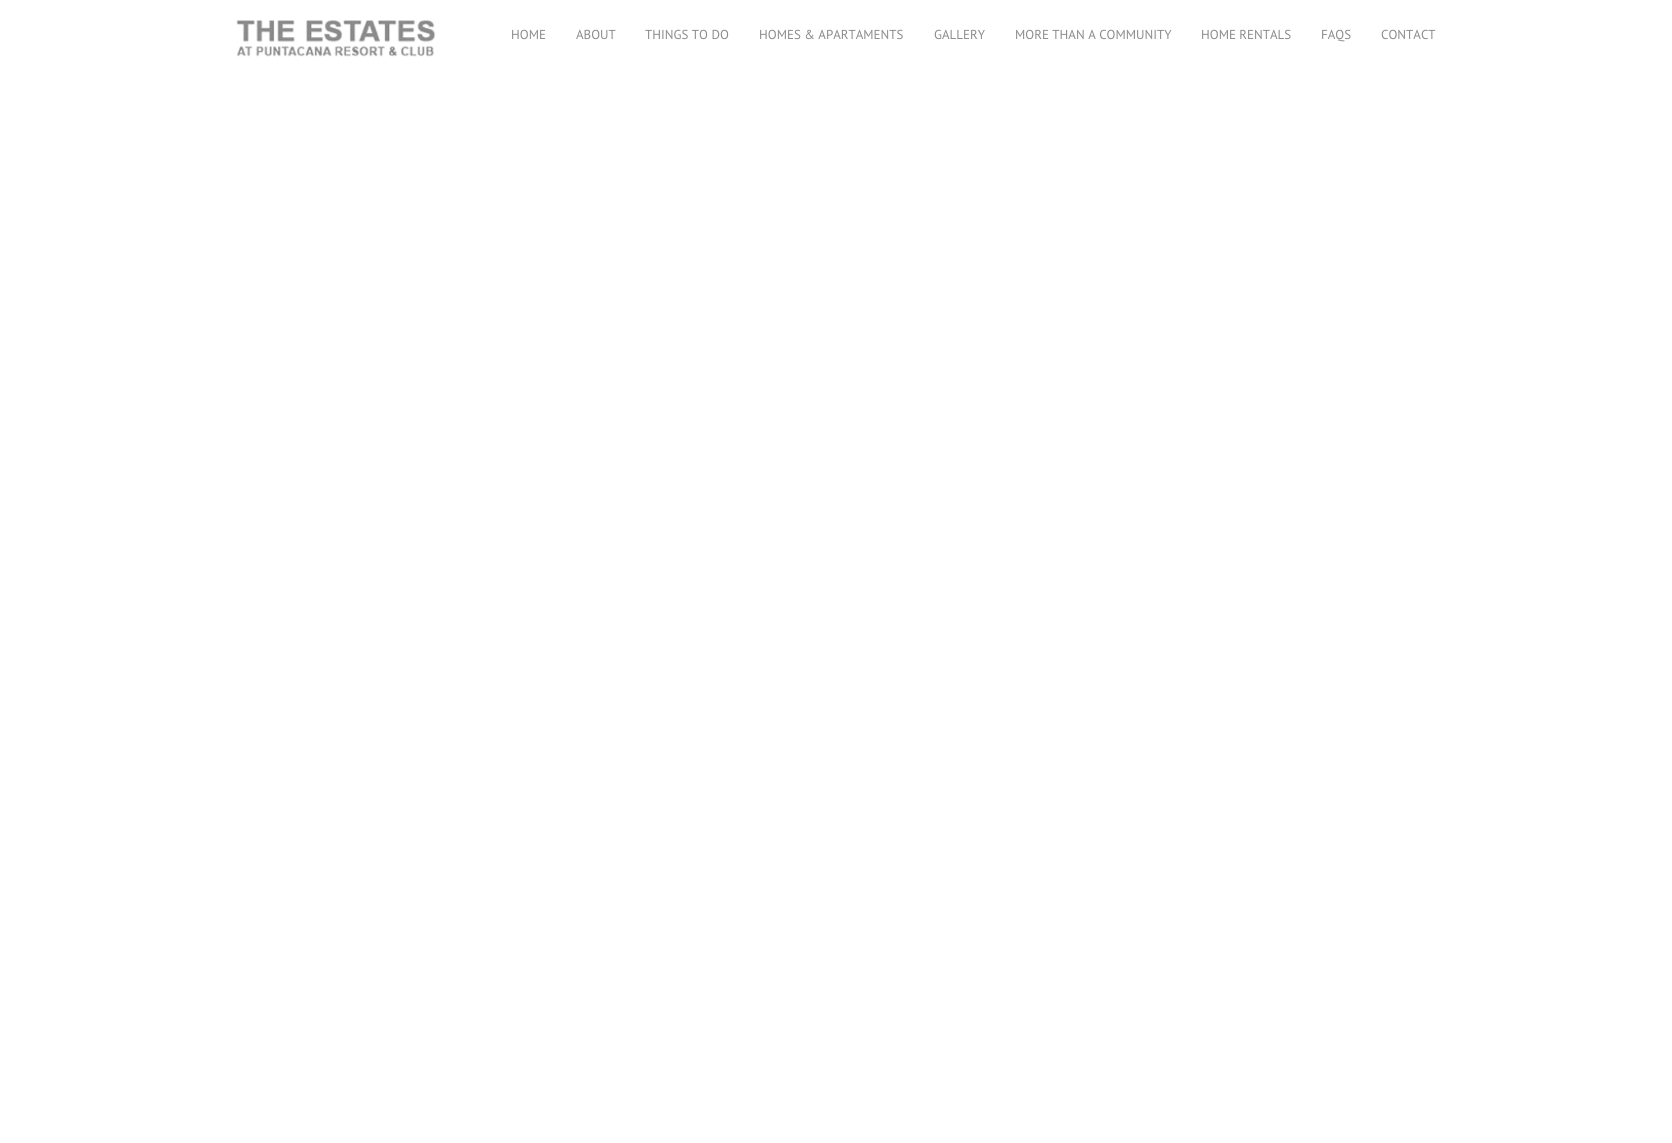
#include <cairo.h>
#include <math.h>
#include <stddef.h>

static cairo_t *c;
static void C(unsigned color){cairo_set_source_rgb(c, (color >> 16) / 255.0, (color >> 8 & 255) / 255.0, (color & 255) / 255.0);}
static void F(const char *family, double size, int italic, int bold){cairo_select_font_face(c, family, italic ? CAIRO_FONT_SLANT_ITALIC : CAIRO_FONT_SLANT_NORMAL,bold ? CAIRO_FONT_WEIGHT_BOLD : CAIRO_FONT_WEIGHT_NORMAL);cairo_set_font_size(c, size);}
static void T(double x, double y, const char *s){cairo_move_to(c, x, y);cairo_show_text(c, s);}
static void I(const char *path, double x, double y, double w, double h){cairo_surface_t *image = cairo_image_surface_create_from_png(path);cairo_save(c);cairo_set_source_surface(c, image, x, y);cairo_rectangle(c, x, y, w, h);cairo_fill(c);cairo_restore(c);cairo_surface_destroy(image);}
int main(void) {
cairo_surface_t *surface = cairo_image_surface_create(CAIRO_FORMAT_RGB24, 1672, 1143);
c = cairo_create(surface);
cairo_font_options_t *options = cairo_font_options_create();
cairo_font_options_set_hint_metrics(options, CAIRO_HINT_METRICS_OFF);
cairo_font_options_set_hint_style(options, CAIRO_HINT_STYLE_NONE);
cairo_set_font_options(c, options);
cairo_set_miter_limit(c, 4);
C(0xffffff);
cairo_paint(c);
I("1.png",236,20,200,37);
F("PT Sans",13,0,0);
C(0x8b8b8b);
T(511,39,"HOME");
T(576,39,"ABOUT");
T(645,39,"THINGS TO DO");
T(759,39,"HOMES & APARTAMENTS");
T(934,39,"GALLERY");
T(1015,39,"MORE THAN A COMMUNITY");
T(1201,39,"HOME RENTALS");
T(1321,39,"FAQS");
T(1381,39,"CONTACT");
cairo_surface_write_to_png(surface, "o.png");
cairo_font_options_destroy(options);
cairo_destroy(c);
cairo_surface_destroy(surface);
return 0;
}
